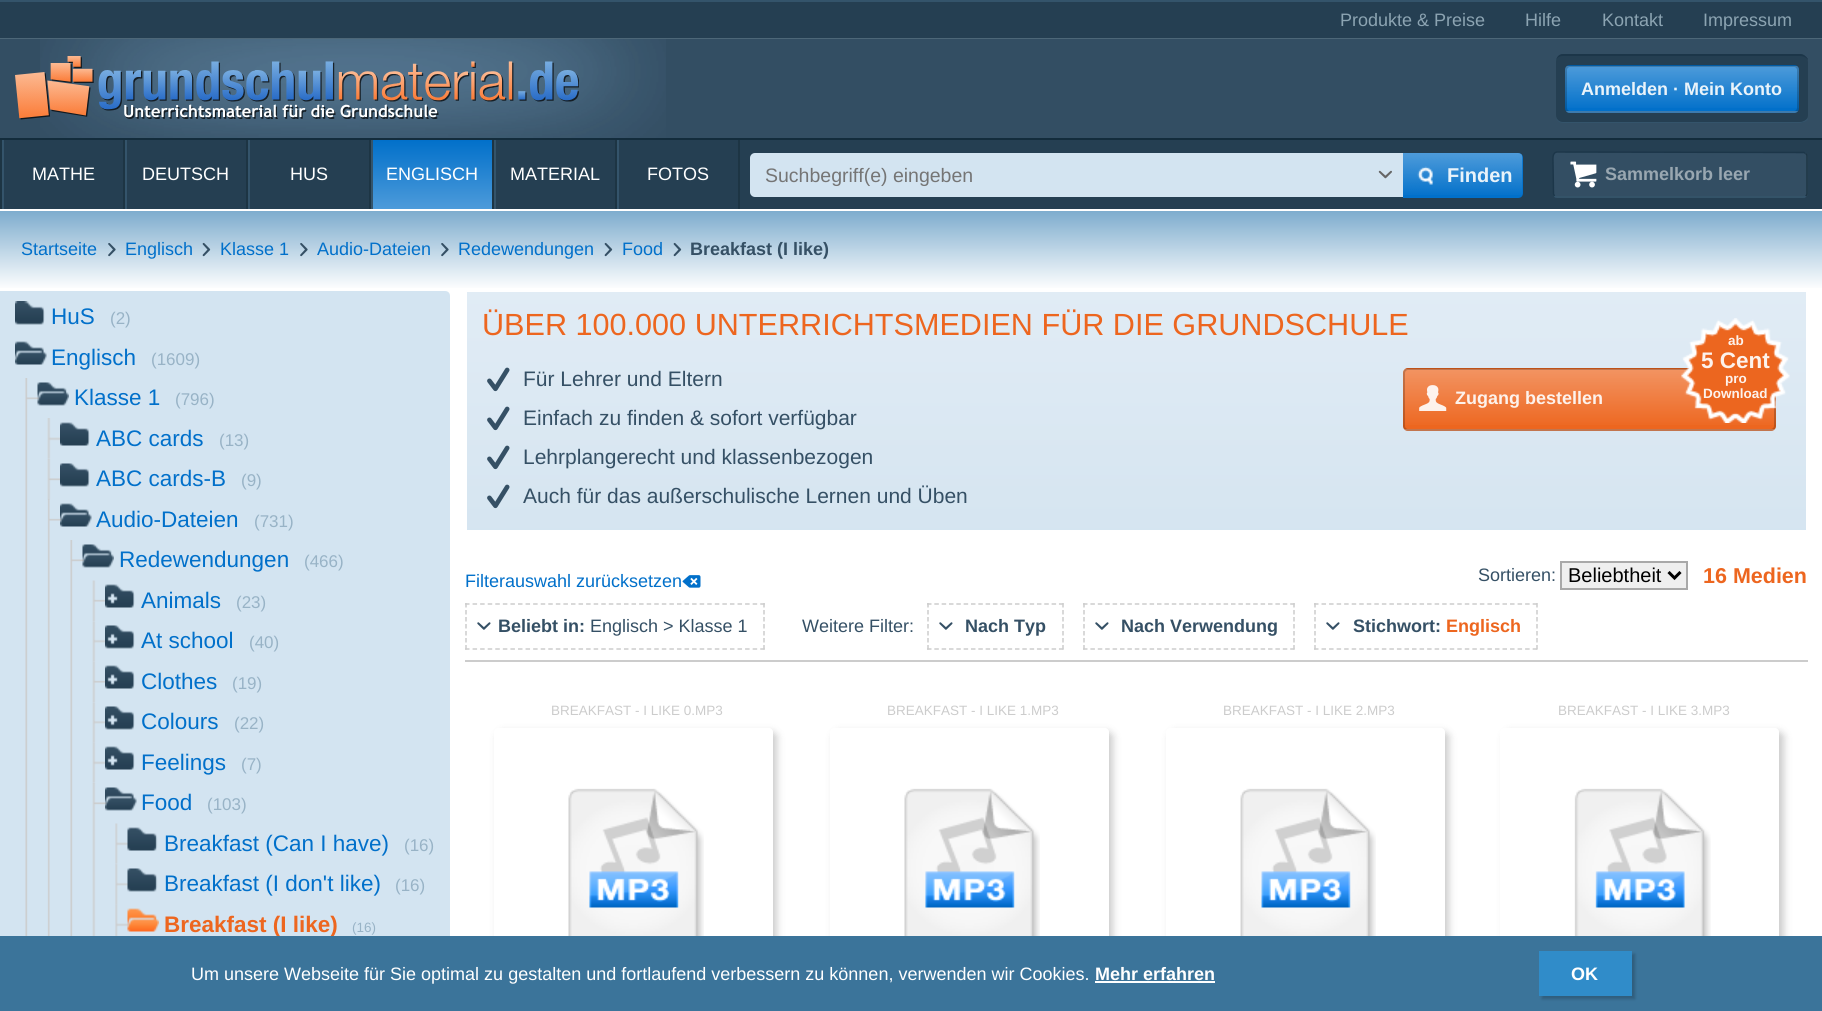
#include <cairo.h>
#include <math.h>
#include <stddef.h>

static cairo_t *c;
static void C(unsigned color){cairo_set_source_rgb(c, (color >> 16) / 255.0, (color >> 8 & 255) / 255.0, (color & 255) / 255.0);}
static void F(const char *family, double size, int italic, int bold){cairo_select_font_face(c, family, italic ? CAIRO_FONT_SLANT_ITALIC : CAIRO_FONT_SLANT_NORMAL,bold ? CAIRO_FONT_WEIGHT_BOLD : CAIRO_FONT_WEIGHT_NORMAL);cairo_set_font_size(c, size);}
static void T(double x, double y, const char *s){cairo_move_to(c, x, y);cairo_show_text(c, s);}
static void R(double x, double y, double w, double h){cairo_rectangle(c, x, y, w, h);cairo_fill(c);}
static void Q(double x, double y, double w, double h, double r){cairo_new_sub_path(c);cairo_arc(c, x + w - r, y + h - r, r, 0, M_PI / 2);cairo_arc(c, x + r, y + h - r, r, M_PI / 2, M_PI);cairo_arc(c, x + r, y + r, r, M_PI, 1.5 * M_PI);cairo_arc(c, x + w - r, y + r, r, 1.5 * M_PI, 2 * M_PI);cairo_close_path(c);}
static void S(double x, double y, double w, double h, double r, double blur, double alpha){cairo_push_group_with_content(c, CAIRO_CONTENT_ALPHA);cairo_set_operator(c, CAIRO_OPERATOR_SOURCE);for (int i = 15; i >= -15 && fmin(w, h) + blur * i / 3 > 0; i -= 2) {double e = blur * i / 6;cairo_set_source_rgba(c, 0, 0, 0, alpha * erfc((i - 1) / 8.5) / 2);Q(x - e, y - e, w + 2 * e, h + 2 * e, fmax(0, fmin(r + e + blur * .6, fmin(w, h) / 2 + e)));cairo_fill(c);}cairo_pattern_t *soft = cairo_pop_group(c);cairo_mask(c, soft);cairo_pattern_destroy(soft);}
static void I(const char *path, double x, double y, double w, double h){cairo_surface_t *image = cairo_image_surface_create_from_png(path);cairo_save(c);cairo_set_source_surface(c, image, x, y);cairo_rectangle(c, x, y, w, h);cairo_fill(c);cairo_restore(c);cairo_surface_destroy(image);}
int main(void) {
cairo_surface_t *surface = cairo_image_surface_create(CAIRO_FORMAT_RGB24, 1822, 1011);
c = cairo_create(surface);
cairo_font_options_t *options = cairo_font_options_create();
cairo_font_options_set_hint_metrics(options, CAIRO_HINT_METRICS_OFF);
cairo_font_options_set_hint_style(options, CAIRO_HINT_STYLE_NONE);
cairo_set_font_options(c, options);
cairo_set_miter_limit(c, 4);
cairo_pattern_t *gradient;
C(0xffffff);
cairo_paint(c);
C(0x34546b);
R(0,0,1822,2);
C(0x253f52);
R(0,2,1822,36);
C(0x4d6778);
R(0,38,1822,1);
F("Liberation Sans",18,0,0);
C(0x8ca4b2);
T(1340,26,"Produkte & Preise");
T(1525,26,"Hilfe");
T(1602,26,"Kontakt");
T(1703,26,"Impressum");
C(0x334e63);
R(0,39,1822,99);
C(0x132c3c);
R(0,138,1822,2);
I("1.png",40,39,626,99);
I("2.png",15,56,564,64);
C(0x253f52);
Q(1556,54,252,69,8);
cairo_fill(c);
C(0x1c3649);
cairo_new_path(c);
cairo_move_to(c,1563,54);
cairo_line_to(c,1800,54);
cairo_curve_to(c,1803,54,1806,56,1808,59);
cairo_line_to(c,1808,60);
cairo_curve_to(c,1806,57,1803,56,1800,56);
cairo_line_to(c,1563,56);
cairo_curve_to(c,1559,56,1556,58,1556,62);
cairo_curve_to(c,1556,57,1559,54,1563,54);
cairo_close_path(c);
cairo_fill(c);
C(0x34546b);
cairo_new_path(c);
cairo_move_to(c,1563,123);
cairo_line_to(c,1800,123);
cairo_curve_to(c,1803,123,1808,121,1808,118);
cairo_curve_to(c,1806,120,1803,122,1800,122);
cairo_line_to(c,1563,122);
cairo_curve_to(c,1559,122,1556,119,1556,116);
cairo_curve_to(c,1556,120,1559,123,1563,123);
cairo_close_path(c);
cairo_fill(c);
C(0x0170ca);
Q(1565,65,234,48,5);
cairo_fill(c);
cairo_save(c);
Q(1565,65,234,48,5);
cairo_clip(c);
gradient = cairo_pattern_create_linear(1682,66,1682,111);
cairo_pattern_add_color_stop_rgba(gradient,0,1,1,1,.3);
cairo_pattern_add_color_stop_rgba(gradient,1,1,1,1,0);
cairo_set_source(c,gradient);
cairo_pattern_destroy(gradient);
R(1565,66,234,42);
gradient = cairo_pattern_create_linear(1682,111,1682,156);
cairo_pattern_add_color_stop_rgba(gradient,0,1,1,1,.3);
cairo_pattern_add_color_stop_rgba(gradient,1,1,1,1,0);
cairo_set_source(c,gradient);
cairo_pattern_destroy(gradient);
R(1565,111,234,2);
cairo_restore(c);
Q(1566,66,232,46,4);
cairo_set_source_rgba(c,0,0,0,0.2);
cairo_stroke(c);
F("Liberation Sans",18,0,1);
C(0xe9f3fa);
T(1581,95,"Anmelden · Mein Konto");
C(0x253f52);
R(4,140,1818,69);
C(0x1d3544);
R(0,140,2,69);
R(123,140,2,69);
C(0x34546b);
R(2,140,2,69);
F("Liberation Sans",18,0,0);
C(0xffffff);
T(32,180,"MATHE");
C(0x1d3544);
R(246,140,2,69);
C(0x34546b);
R(125,140,2,69);
C(0xffffff);
T(142,180,"DEUTSCH");
C(0x1d3544);
R(369,140,2,69);
C(0x34546b);
R(248,140,2,69);
C(0xffffff);
T(290,180,"HUS");
gradient = cairo_pattern_create_linear(432,140,432,209);
cairo_pattern_add_color_stop_rgba(gradient,0,0.004,0.439,0.792,1);
cairo_pattern_add_color_stop_rgba(gradient,1,0.302,0.608,0.855,1);
cairo_set_source(c,gradient);
cairo_pattern_destroy(gradient);
R(373,140,119,69);
C(0x1d3544);
R(492,140,2,69);
C(0x34546b);
R(371,140,2,69);
C(0xffffff);
T(386,180,"ENGLISCH");
C(0x1d3544);
R(615,140,2,69);
C(0x34546b);
R(494,140,2,69);
C(0xffffff);
T(510,180,"MATERIAL");
C(0x1d3544);
R(738,140,2,69);
C(0x34546b);
R(617,140,2,69);
C(0xffffff);
T(647,180,"FOTOS");
C(0x334e63);
Q(1553,152,255,46,5);
cairo_fill(c);
cairo_new_path(c);
cairo_move_to(c,1805.5,153.5);
cairo_curve_to(c,1806.5,154,1807,155,1807,156);
cairo_line_to(c,1807,193.5);
cairo_curve_to(c,1807,194.5,1806.5,195.5,1805.5,196);
C(0x1d3544);
cairo_set_line_width(c,1.5);
cairo_stroke(c);
cairo_new_path(c);
cairo_move_to(c,1805.5,196);
cairo_curve_to(c,1805,197,1804,197,1803,197);
cairo_line_to(c,1557,197);
cairo_curve_to(c,1556,197,1555,197,1554.5,196);
C(0x34546b);
cairo_stroke(c);
cairo_new_path(c);
cairo_move_to(c,1554.5,196);
cairo_line_to(c,1553.5,194);
cairo_line_to(c,1553,162);
cairo_curve_to(c,1553,159.5,1552,152.5,1557,152);
cairo_line_to(c,1804,152.5);
cairo_line_to(c,1805.5,153.5);
C(0x1c3649);
cairo_stroke(c);
I("3.png",1570,161,27,27);
F("Liberation Sans",18,0,1);
C(0x99a7b1);
T(1605,180,"Sammelkorb leer");
C(0xd3e4f1);
Q(750,153,765,44,5);
cairo_fill(c);
F("Liberation Sans",19.5,0,0);
C(0x757575);
T(765,182,"Suchbegriff(e) eingeben");
I("4.png",1378,170,14,9);
C(0x0170ca);
cairo_new_path(c);
cairo_move_to(c,1403,153);
cairo_line_to(c,1518,153);
cairo_curve_to(c,1521,153,1523,155,1523,158);
cairo_line_to(c,1523,193);
cairo_curve_to(c,1523,196,1521,198,1518,198);
cairo_line_to(c,1403,198);
cairo_close_path(c);
cairo_fill(c);
I("5.png",1403,153,120,42);
F("Liberation Sans",20,0,1);
C(0xe9f3fa);
T(1447,182,"Finden");
gradient = cairo_pattern_create_linear(911,210,911,290);
cairo_pattern_add_color_stop_rgba(gradient,0,0.486,0.671,0.804,1);
cairo_pattern_add_color_stop_rgba(gradient,1,1,1,1,1);
cairo_set_source(c,gradient);
cairo_pattern_destroy(gradient);
R(0,211,1822,77);
F("Liberation Sans",18,0,0);
C(0x0170ca);
T(21,255,"Startseite");
I("6.png",108,243,8,14);
T(125,255,"Englisch");
I("7.png",202,242,9,15);
T(220,255,"Klasse 1");
I("6.png",300,243,8,14);
T(317,255,"Audio-Dateien");
I("6.png",441,243,8,14);
T(458,255,"Redewendungen");
I("7.png",604,242,9,15);
T(622,255,"Food");
I("7.png",673,242,9,15);
F("Liberation Sans",18,0,1);
C(0x355065);
T(690,255,"Breakfast (I like)");
C(0xd3e4f1);
cairo_new_path(c);
cairo_move_to(c,0,291);
cairo_line_to(c,445,291);
cairo_curve_to(c,448,291,450,293,450,296);
cairo_line_to(c,450,1011);
cairo_line_to(c,0,1011);
cairo_close_path(c);
cairo_fill(c);
I("8.png",15,301,30,24);
F("Liberation Sans",22.5,0,0);
C(0x0170ca);
T(51,324,"HuS");
F("Liberation Sans",17,0,0);
C(0x98b3c6);
T(110,324,"(2)");
I("9.png",15,341,32,24);
F("Liberation Sans",22.5,0,0);
C(0x0170ca);
T(51,365,"Englisch");
F("Liberation Sans",17,0,0);
C(0x98b3c6);
T(151,365,"(1609)");
I("10.png",25,378,15,558);
I("11.png",37,382,32,24);
F("Liberation Sans",22.5,0,0);
C(0x0170ca);
T(74,405,"Klasse 1");
F("Liberation Sans",17,0,0);
C(0x98b3c6);
T(175,405,"(796)");
I("12.png",47,418,13,42);
I("13.png",60,422,30,24);
F("Liberation Sans",22.5,0,0);
C(0x0170ca);
T(96,446,"ABC cards");
F("Liberation Sans",17,0,0);
C(0x98b3c6);
T(219,446,"(13)");
I("14.png",47,459,13,41);
I("15.png",60,463,30,24);
F("Liberation Sans",22.5,0,0);
C(0x0170ca);
T(96,486,"ABC cards-B");
F("Liberation Sans",17,0,0);
C(0x98b3c6);
T(241,486,"(9)");
I("16.png",47,499,15,437);
I("17.png",60,503,32,24);
F("Liberation Sans",22.5,0,0);
C(0x0170ca);
T(96,527,"Audio-Dateien");
F("Liberation Sans",17,0,0);
C(0x98b3c6);
T(254,527,"(731)");
I("18.png",70,540,15,396);
I("11.png",82,544,32,24);
F("Liberation Sans",22.5,0,0);
C(0x0170ca);
T(119,567,"Redewendungen");
F("Liberation Sans",17,0,0);
C(0x98b3c6);
T(304,567,"(466)");
I("19.png",92,580,13,41);
I("20.png",105,584,30,24);
F("Liberation Sans",22.5,0,0);
C(0x0170ca);
T(141,608,"Animals");
F("Liberation Sans",17,0,0);
C(0x98b3c6);
T(236,608,"(23)");
I("21.png",92,621,13,41);
I("22.png",105,625,30,24);
F("Liberation Sans",22.5,0,0);
C(0x0170ca);
T(141,648,"At school");
F("Liberation Sans",17,0,0);
C(0x98b3c6);
T(249,648,"(40)");
I("23.png",92,661,13,41);
I("20.png",105,665,30,24);
F("Liberation Sans",22.5,0,0);
C(0x0170ca);
T(141,689,"Clothes");
F("Liberation Sans",17,0,0);
C(0x98b3c6);
T(232,689,"(19)");
I("21.png",92,702,13,41);
I("22.png",105,706,30,24);
F("Liberation Sans",22.5,0,0);
C(0x0170ca);
T(141,729,"Colours");
F("Liberation Sans",17,0,0);
C(0x98b3c6);
T(234,729,"(22)");
I("24.png",92,742,13,42);
I("20.png",105,746,30,24);
F("Liberation Sans",22.5,0,0);
C(0x0170ca);
T(141,770,"Feelings");
F("Liberation Sans",17,0,0);
C(0x98b3c6);
T(241,770,"(7)");
I("25.png",92,783,15,153);
I("26.png",105,787,32,24);
F("Liberation Sans",22.5,0,0);
C(0x0170ca);
T(141,810,"Food");
F("Liberation Sans",17,0,0);
C(0x98b3c6);
T(207,810,"(103)");
I("27.png",115,823,13,42);
I("28.png",127,827,31,24);
F("Liberation Sans",22.5,0,0);
C(0x0170ca);
T(164,851,"Breakfast (Can I have)");
F("Liberation Sans",17,0,0);
C(0x98b3c6);
T(404,851,"(16)");
I("29.png",115,864,13,41);
I("30.png",127,868,31,24);
F("Liberation Sans",22.5,0,0);
C(0x0170ca);
T(164,891,"Breakfast (I don't like)");
F("Liberation Sans",17,0,0);
C(0x98b3c6);
T(395,891,"(16)");
I("31.png",115,904,15,32);
I("32.png",127,908,32,24);
F("Liberation Sans",22.5,0,1);
C(0xed661f);
T(164,932,"Breakfast (I like)");
F("Liberation Sans",13.5,0,0);
C(0x98b3c6);
T(352,932,"(16)");
gradient = cairo_pattern_create_linear(1136,291,1136,561);
cairo_pattern_add_color_stop_rgba(gradient,0,0.882,0.925,0.961,1);
cairo_pattern_add_color_stop_rgba(gradient,1,0.831,0.894,0.941,1);
cairo_set_source(c,gradient);
cairo_pattern_destroy(gradient);
R(467,292,1339,238);
F("Liberation Sans",30.6,0,0);
C(0xed661f);
T(482,335,"ÜBER 100.000 UNTERRICHTSMEDIEN FÜR DIE GRUNDSCHULE");
I("33.png",487,367,23,25);
F("Liberation Sans",21,0,0);
C(0x355065);
T(523,386,"Für Lehrer und Eltern");
I("34.png",487,406,23,25);
T(523,425,"Einfach zu finden & sofort verfügbar");
I("35.png",487,445,23,25);
T(523,464,"Lehrplangerecht und klassenbezogen");
I("36.png",487,484,23,25);
T(523,503,"Auch für das außerschulische Lernen und Üben");
C(0xed661f);
Q(1403,368,373,63,5);
cairo_fill(c);
cairo_save(c);
Q(1403,368,373,63,5);
cairo_clip(c);
gradient = cairo_pattern_create_linear(1589,369,1589,429);
cairo_pattern_add_color_stop_rgba(gradient,0,1,1,1,.3);
cairo_pattern_add_color_stop_rgba(gradient,1,1,1,1,0);
cairo_set_source(c,gradient);
cairo_pattern_destroy(gradient);
R(1403,369,373,56);
gradient = cairo_pattern_create_linear(1589,429,1589,489);
cairo_pattern_add_color_stop_rgba(gradient,0,1,1,1,.3);
cairo_pattern_add_color_stop_rgba(gradient,1,1,1,1,0);
cairo_set_source(c,gradient);
cairo_pattern_destroy(gradient);
R(1403,429,373,2);
cairo_restore(c);
Q(1404,369,371,61,4);
cairo_set_source_rgba(c,0,0,0,0.2);
cairo_set_line_width(c,2);
cairo_stroke(c);
I("37.png",1419,385,28,26);
F("Liberation Sans",18,0,1);
C(0xfdf2ec);
T(1455,404,"Zugang bestellen");
I("38.png",1681,318,109,105);
F("Liberation Sans",13.5,0,1);
T(1728,345,"ab");
F("Liberation Sans",22.5,0,1);
T(1701,368,"5 Cent");
F("Liberation Sans",13.5,0,1);
T(1725,383,"pro");
T(1703,398,"Download");
C(0xcccccc);
R(465,660,1343,2);
F("Liberation Sans",18,0,0);
C(0x0170ca);
T(465,587,"Filterauswahl zurücksetzen");
I("39.png",682,575,19,13);
C(0x355065);
T(1478,581,"Sortieren:");
C(0xefefef);
cairo_rectangle(c,1561,562,126,27);
cairo_fill_preserve(c);
C(0xa9a9a9);
cairo_stroke(c);
cairo_new_path(c);
cairo_move_to(c,1668.5,572);
cairo_line_to(c,1674.5,578);
cairo_line_to(c,1680.5,572);
C(0x000000);
cairo_set_line_width(c,3);
cairo_stroke(c);
F("Liberation Sans",20,0,0);
T(1568,582,"Beliebtheit");
F("Liberation Sans",21.5,0,1);
C(0xed661f);
T(1703,583,"16 Medien");
cairo_new_path(c);
cairo_move_to(c,465,604);
cairo_line_to(c,765,604);
C(0xcccccc);
cairo_set_line_width(c,1.5);
cairo_set_dash(c,(double[]){4.5,3.07},2,0);
cairo_stroke(c);
cairo_new_path(c);
cairo_move_to(c,764,603);
cairo_line_to(c,764,649.5);
cairo_set_dash(c,(double[]){4.5,2.5},2,0);
cairo_stroke(c);
cairo_new_path(c);
cairo_move_to(c,465,649);
cairo_line_to(c,765,649);
cairo_set_dash(c,(double[]){4.5,3.07},2,0);
cairo_stroke(c);
cairo_new_path(c);
cairo_move_to(c,466,603);
cairo_line_to(c,466,649.5);
cairo_set_dash(c,(double[]){4.5,2.5},2,0);
cairo_stroke(c);
I("40.png",477,622,14,8);
F("Liberation Sans",18,0,1);
C(0x355065);
T(498,632,"Beliebt in:");
F("Liberation Sans",18,0,0);
T(590,632,"Englisch > Klasse 1");
T(802,632,"Weitere Filter:");
cairo_new_path(c);
cairo_move_to(c,927,604);
cairo_line_to(c,1063.5,604);
C(0xcccccc);
cairo_set_dash(c,(double[]){4.5,2.83},2,0);
cairo_stroke(c);
cairo_new_path(c);
cairo_move_to(c,1063,603);
cairo_line_to(c,1063,649.5);
cairo_set_dash(c,(double[]){4.5,2.5},2,0);
cairo_stroke(c);
cairo_new_path(c);
cairo_move_to(c,927,649);
cairo_line_to(c,1063.5,649);
cairo_set_dash(c,(double[]){4.5,2.83},2,0);
cairo_stroke(c);
cairo_new_path(c);
cairo_move_to(c,928,603);
cairo_line_to(c,928,649.5);
cairo_set_dash(c,(double[]){4.5,2.5},2,0);
cairo_stroke(c);
I("40.png",939,622,14,8);
F("Liberation Sans",18,0,1);
C(0x355065);
T(965,632,"Nach Typ");
cairo_new_path(c);
cairo_move_to(c,1083,604);
cairo_line_to(c,1294.5,604);
C(0xcccccc);
cairo_set_dash(c,(double[]){4.5,2.9},2,0);
cairo_stroke(c);
cairo_new_path(c);
cairo_move_to(c,1294,603);
cairo_line_to(c,1294,649.5);
cairo_set_dash(c,(double[]){4.5,2.5},2,0);
cairo_stroke(c);
cairo_new_path(c);
cairo_move_to(c,1083,649);
cairo_line_to(c,1294.5,649);
cairo_set_dash(c,(double[]){4.5,2.9},2,0);
cairo_stroke(c);
cairo_new_path(c);
cairo_move_to(c,1084,603);
cairo_line_to(c,1084,649.5);
cairo_set_dash(c,(double[]){4.5,2.5},2,0);
cairo_stroke(c);
I("40.png",1095,622,14,8);
C(0x355065);
T(1121,632,"Nach Verwendung");
cairo_new_path(c);
cairo_move_to(c,1314,604);
cairo_line_to(c,1537.5,604);
C(0xcccccc);
cairo_set_dash(c,(double[]){4.5,3.04},2,0);
cairo_stroke(c);
cairo_new_path(c);
cairo_move_to(c,1537,603);
cairo_line_to(c,1537,649.5);
cairo_set_dash(c,(double[]){4.5,2.5},2,0);
cairo_stroke(c);
cairo_new_path(c);
cairo_move_to(c,1314,649);
cairo_line_to(c,1537.5,649);
cairo_set_dash(c,(double[]){4.5,3.04},2,0);
cairo_stroke(c);
cairo_new_path(c);
cairo_move_to(c,1315,603);
cairo_line_to(c,1315,649.5);
cairo_set_dash(c,(double[]){4.5,2.5},2,0);
cairo_stroke(c);
I("40.png",1326,622,14,8);
C(0x355065);
T(1353,632,"Stichwort:");
C(0xed661f);
T(1446,632,"Englisch");
F("Liberation Sans",13.5,0,0);
C(0xcccccc);
T(551,715,"BREAKFAST - I LIKE 0.MP3");
cairo_save(c);
cairo_set_fill_rule(c,CAIRO_FILL_RULE_EVEN_ODD);
cairo_new_path(c);
cairo_move_to(c,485,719);
cairo_line_to(c,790,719);
cairo_line_to(c,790,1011);
cairo_line_to(c,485,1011);
cairo_close_path(c);
cairo_move_to(c,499,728);
cairo_line_to(c,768,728);
cairo_curve_to(c,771,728,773,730,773,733);
cairo_line_to(c,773,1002);
cairo_curve_to(c,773,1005,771,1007,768,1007);
cairo_line_to(c,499,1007);
cairo_curve_to(c,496,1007,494,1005,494,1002);
cairo_line_to(c,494,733);
cairo_curve_to(c,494,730,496,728,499,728);
cairo_close_path(c);
cairo_clip(c);
C(0x000000);
S(498,732,279,279,5,4,.2);
cairo_restore(c);
Q(496.5,730.5,274,274,2.5);
C(0xffffff);
cairo_set_line_width(c,5);
cairo_set_dash(c,NULL,0,0);
cairo_stroke(c);
I("41.png",568,788,136,148);
C(0xcccccc);
T(887,715,"BREAKFAST - I LIKE 1.MP3");
cairo_save(c);
cairo_set_fill_rule(c,CAIRO_FILL_RULE_EVEN_ODD);
cairo_new_path(c);
cairo_move_to(c,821,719);
cairo_line_to(c,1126,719);
cairo_line_to(c,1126,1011);
cairo_line_to(c,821,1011);
cairo_close_path(c);
cairo_move_to(c,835,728);
cairo_line_to(c,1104,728);
cairo_curve_to(c,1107,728,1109,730,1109,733);
cairo_line_to(c,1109,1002);
cairo_curve_to(c,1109,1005,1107,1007,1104,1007);
cairo_line_to(c,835,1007);
cairo_curve_to(c,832,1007,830,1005,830,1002);
cairo_line_to(c,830,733);
cairo_curve_to(c,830,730,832,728,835,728);
cairo_close_path(c);
cairo_clip(c);
C(0x000000);
S(834,732,279,279,5,4,.2);
cairo_restore(c);
Q(832.5,730.5,274,274,2.5);
C(0xffffff);
cairo_stroke(c);
I("42.png",904,788,136,148);
C(0xcccccc);
T(1223,715,"BREAKFAST - I LIKE 2.MP3");
cairo_save(c);
cairo_set_fill_rule(c,CAIRO_FILL_RULE_EVEN_ODD);
cairo_new_path(c);
cairo_move_to(c,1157,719);
cairo_line_to(c,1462,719);
cairo_line_to(c,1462,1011);
cairo_line_to(c,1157,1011);
cairo_close_path(c);
cairo_move_to(c,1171,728);
cairo_line_to(c,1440,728);
cairo_curve_to(c,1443,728,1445,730,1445,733);
cairo_line_to(c,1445,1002);
cairo_curve_to(c,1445,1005,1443,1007,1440,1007);
cairo_line_to(c,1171,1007);
cairo_curve_to(c,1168,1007,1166,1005,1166,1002);
cairo_line_to(c,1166,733);
cairo_curve_to(c,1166,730,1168,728,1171,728);
cairo_close_path(c);
cairo_clip(c);
C(0x000000);
S(1170,732,279,279,5,4,.2);
cairo_restore(c);
Q(1168.5,730.5,274,274,2.5);
C(0xffffff);
cairo_stroke(c);
I("43.png",1240,788,136,148);
C(0xcccccc);
T(1558,715,"BREAKFAST - I LIKE 3.MP3");
cairo_save(c);
cairo_set_fill_rule(c,CAIRO_FILL_RULE_EVEN_ODD);
cairo_new_path(c);
cairo_move_to(c,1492,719);
cairo_line_to(c,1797,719);
cairo_line_to(c,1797,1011);
cairo_line_to(c,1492,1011);
cairo_close_path(c);
cairo_move_to(c,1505,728);
cairo_line_to(c,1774,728);
cairo_curve_to(c,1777,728,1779,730,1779,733);
cairo_line_to(c,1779,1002);
cairo_curve_to(c,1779,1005,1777,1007,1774,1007);
cairo_line_to(c,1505,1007);
cairo_curve_to(c,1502,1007,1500,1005,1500,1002);
cairo_line_to(c,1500,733);
cairo_curve_to(c,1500,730,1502,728,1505,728);
cairo_close_path(c);
cairo_clip(c);
C(0x000000);
S(1505,732,279,279,5,4,.2);
cairo_restore(c);
Q(1502.5,730.5,274,274,2.5);
C(0xffffff);
cairo_stroke(c);
I("44.png",1574,788,137,148);
C(0x3b749a);
R(0,936,1822,75);
F("Liberation Sans",18,0,0);
C(0xffffff);
T(191,980,"Um unsere Webseite für Sie optimal zu gestalten und fortlaufend verbessern zu können, verwenden wir Cookies.");
F("Liberation Sans",18,0,1);
T(1095,980,"Mehr erfahren");
R(1095,981,120,2);
C(0x000000);
S(1542,954,93,45,0,1.5,.2);
C(0x308cc9);
R(1539,951,93,45);
C(0xffffff);
T(1571,980,"OK");
cairo_surface_write_to_png(surface, "o.png");
cairo_font_options_destroy(options);
cairo_destroy(c);
cairo_surface_destroy(surface);
return 0;
}
